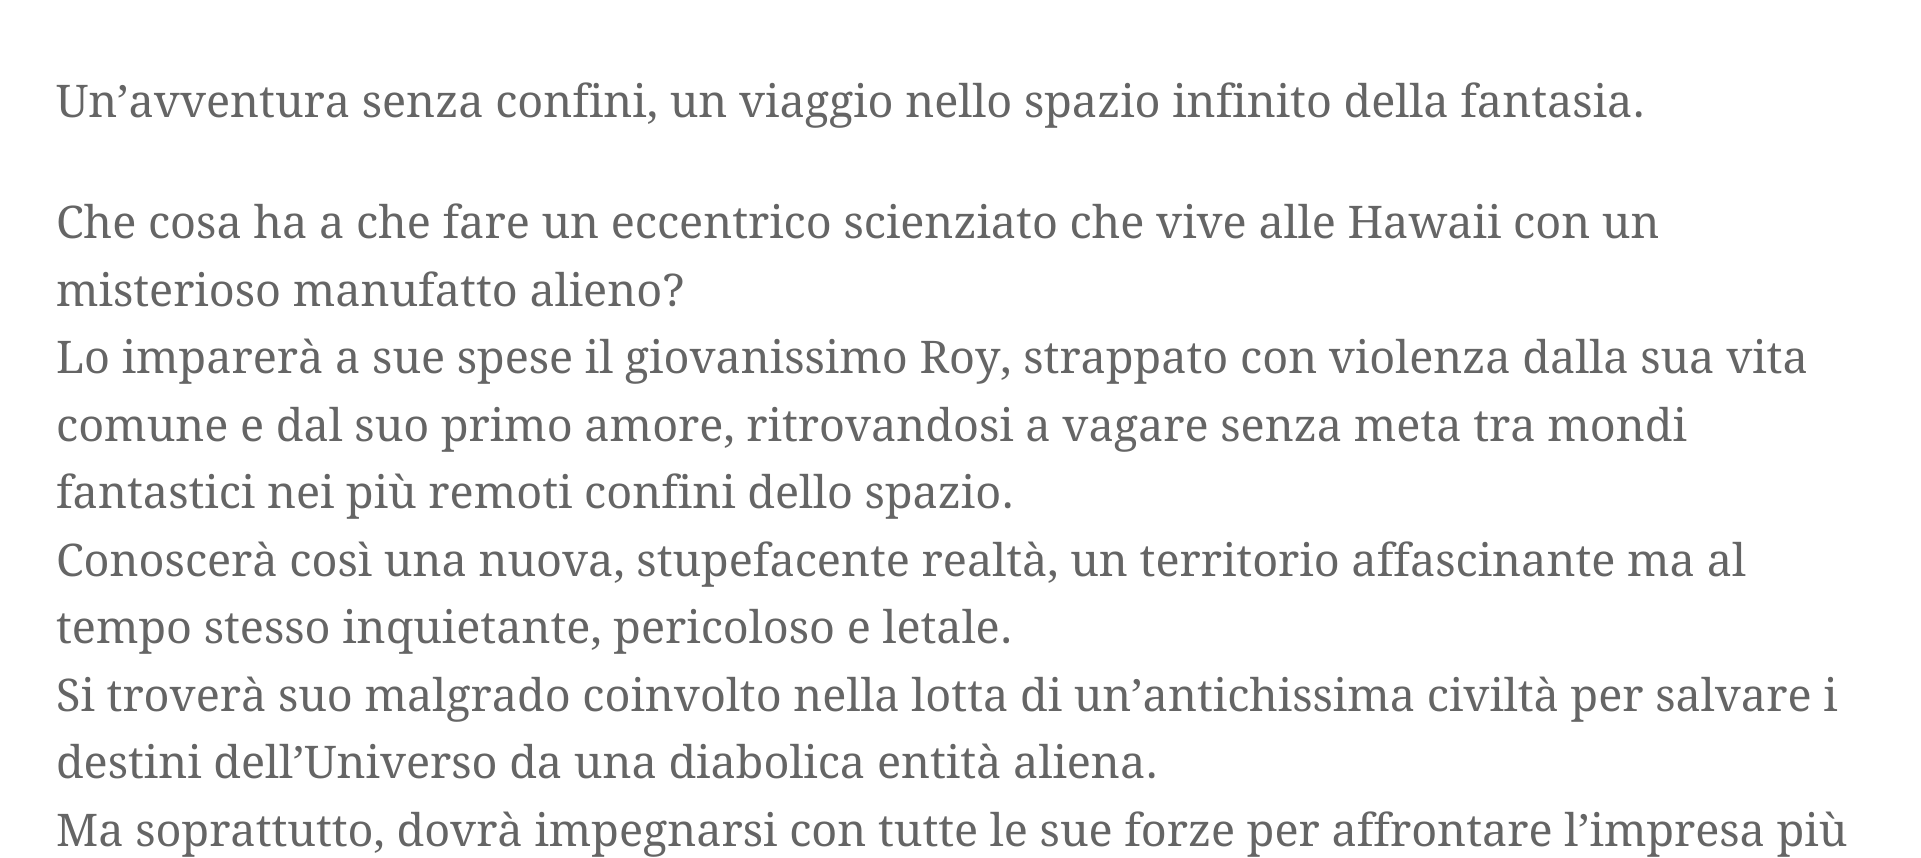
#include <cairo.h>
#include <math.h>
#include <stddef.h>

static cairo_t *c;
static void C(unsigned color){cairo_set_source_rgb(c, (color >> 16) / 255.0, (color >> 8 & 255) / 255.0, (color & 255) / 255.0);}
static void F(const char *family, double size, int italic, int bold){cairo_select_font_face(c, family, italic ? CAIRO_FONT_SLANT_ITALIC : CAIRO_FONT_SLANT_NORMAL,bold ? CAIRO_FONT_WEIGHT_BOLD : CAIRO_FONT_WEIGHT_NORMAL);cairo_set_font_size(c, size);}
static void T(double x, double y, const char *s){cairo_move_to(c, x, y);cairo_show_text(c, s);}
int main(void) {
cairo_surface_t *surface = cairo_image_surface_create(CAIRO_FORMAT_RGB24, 1921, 858);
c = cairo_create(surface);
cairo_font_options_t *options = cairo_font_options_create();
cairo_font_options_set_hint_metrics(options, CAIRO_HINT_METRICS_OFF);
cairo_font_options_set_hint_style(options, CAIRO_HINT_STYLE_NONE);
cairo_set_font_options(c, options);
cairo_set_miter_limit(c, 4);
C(0xffffff);
cairo_paint(c);
F("Droid Serif",45,0,0);
C(0x656565);
T(56,117,"Un’avventura senza confini, un viaggio nello spazio infinito della fantasia.");
T(56,238,"Che cosa ha a che fare un eccentrico scienziato che vive alle Hawaii con un");
T(56,306,"misterioso manufatto alieno?");
T(56,373,"Lo imparerà a sue spese il giovanissimo Roy, strappato con violenza dalla sua vita");
T(56,441,"comune e dal suo primo amore, ritrovandosi a vagare senza meta tra mondi");
T(56,508,"fantastici nei più remoti confini dello spazio.");
T(56,576,"Conoscerà così una nuova, stupefacente realtà, un territorio affascinante ma al");
T(56,643,"tempo stesso inquietante, pericoloso e letale.");
T(56,711,"Si troverà suo malgrado coinvolto nella lotta di un’antichissima civiltà per salvare i");
T(56,778,"destini dell’Universo da una diabolica entità aliena.");
T(56,846,"Ma soprattutto, dovrà impegnarsi con tutte le sue forze per affrontare l’impresa più");
cairo_surface_write_to_png(surface, "o.png");
cairo_font_options_destroy(options);
cairo_destroy(c);
cairo_surface_destroy(surface);
return 0;
}
